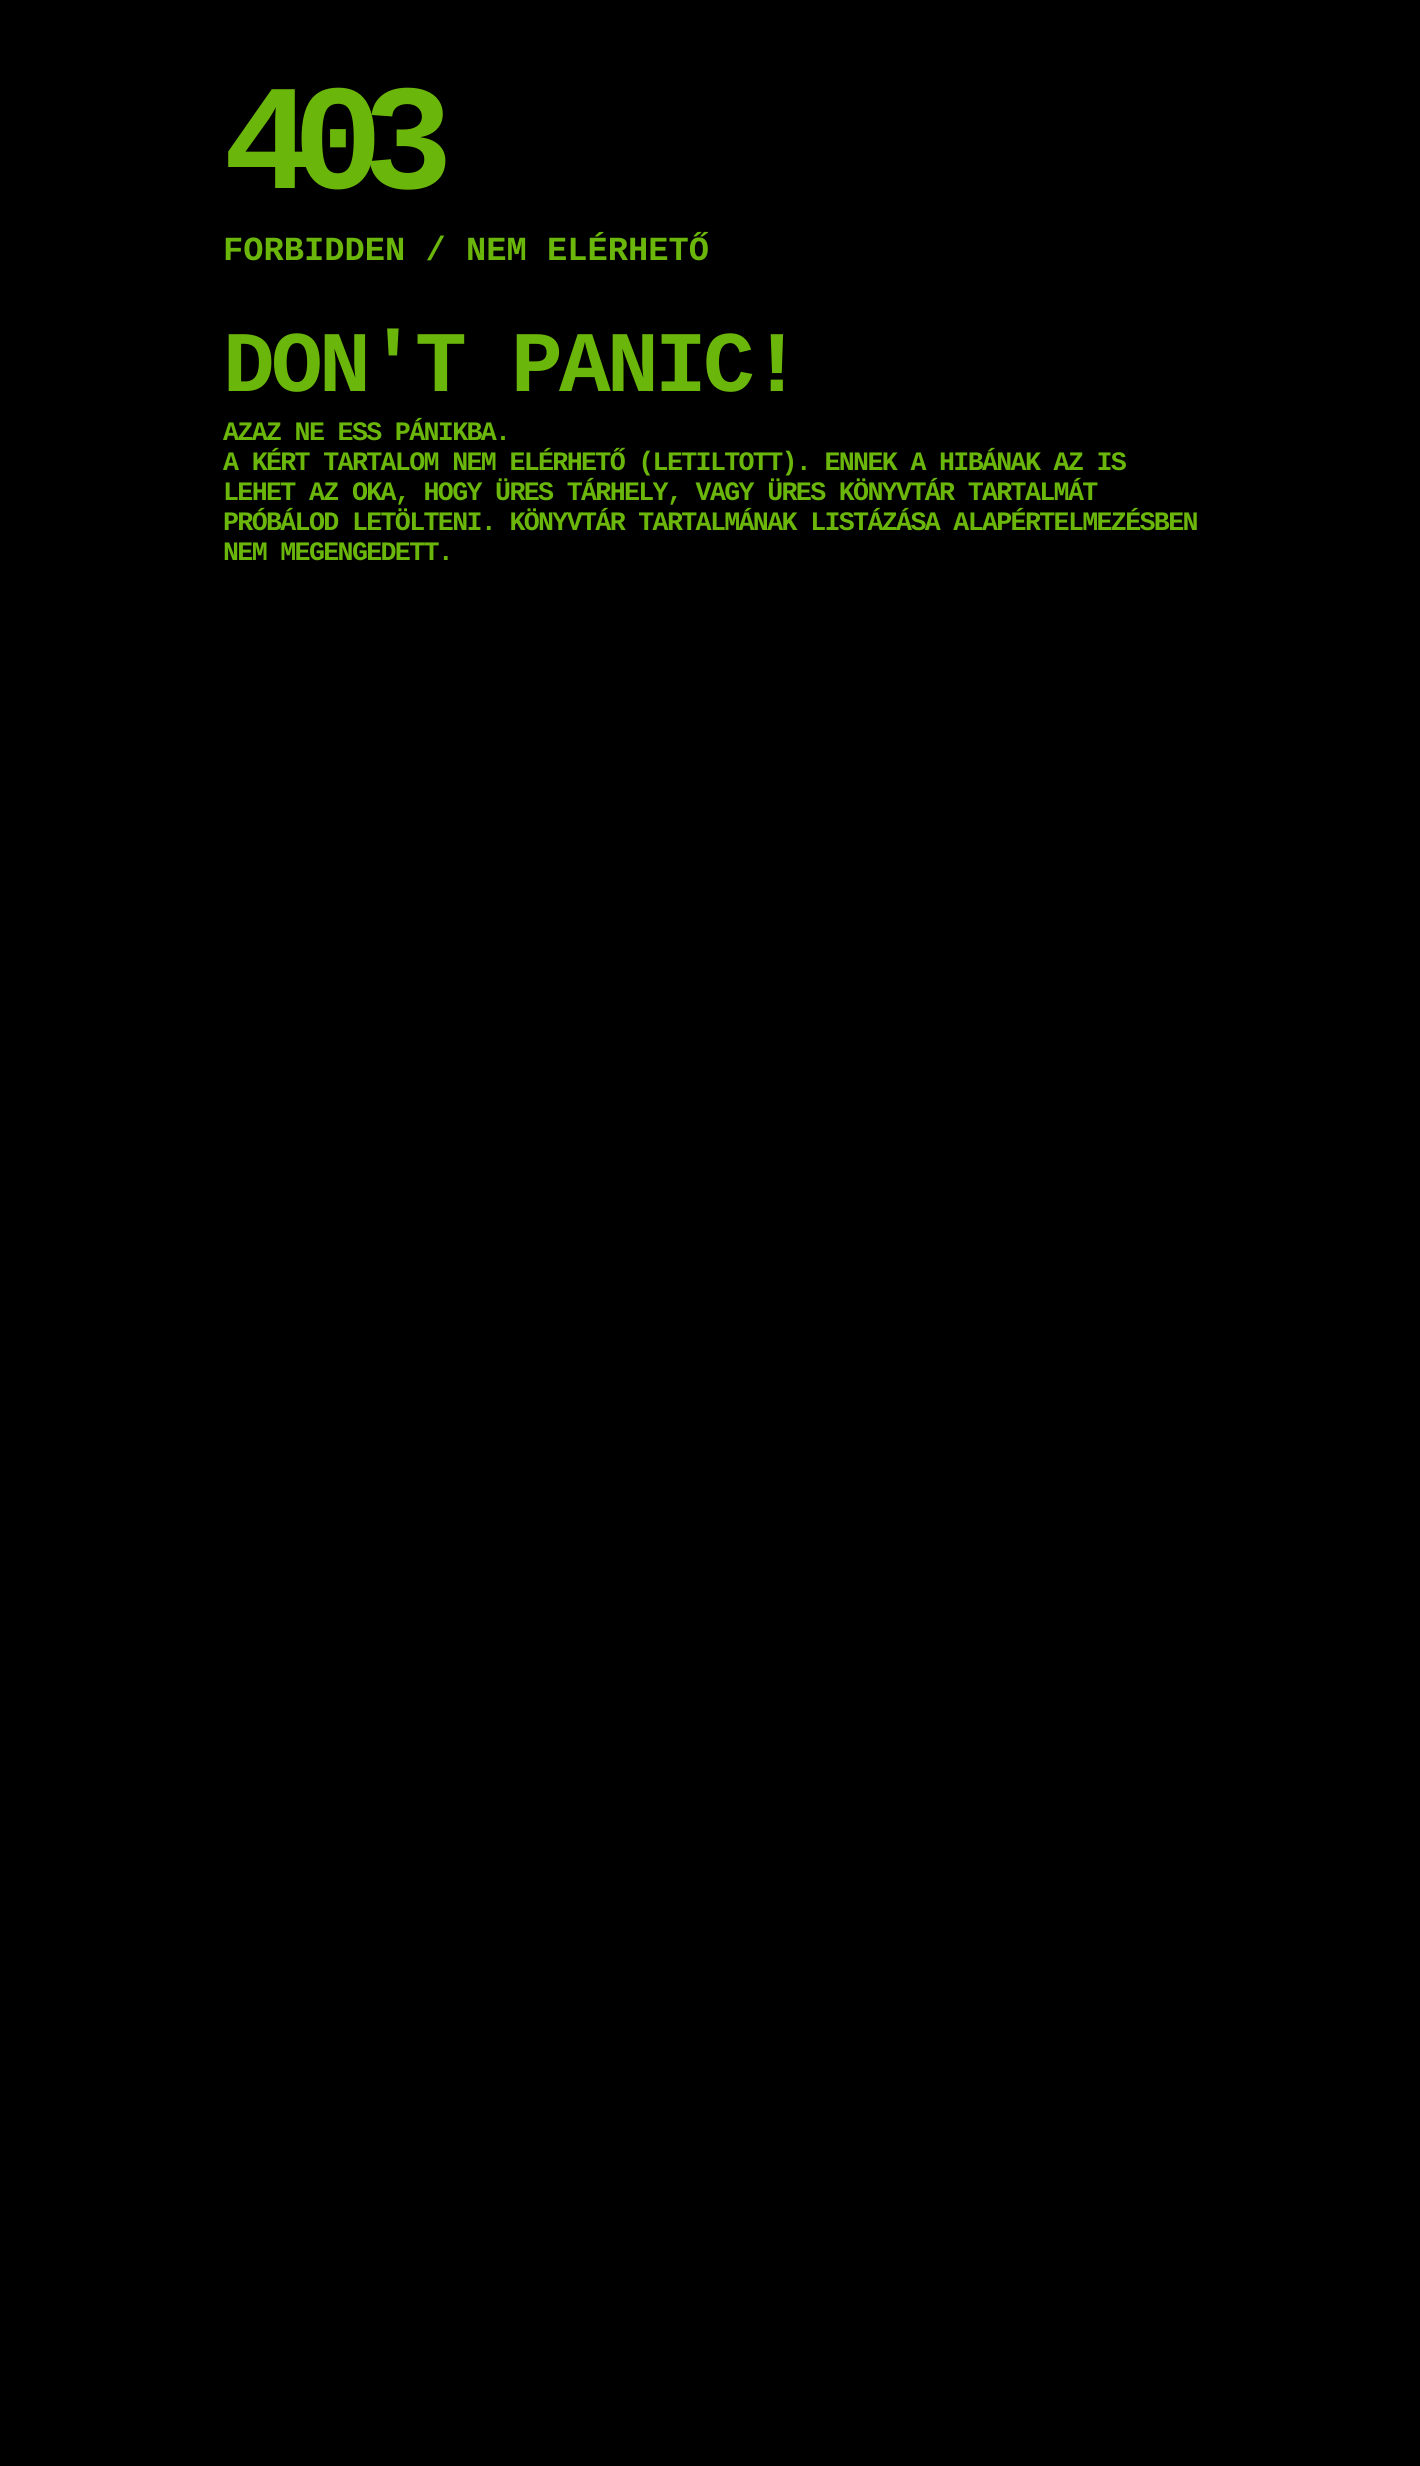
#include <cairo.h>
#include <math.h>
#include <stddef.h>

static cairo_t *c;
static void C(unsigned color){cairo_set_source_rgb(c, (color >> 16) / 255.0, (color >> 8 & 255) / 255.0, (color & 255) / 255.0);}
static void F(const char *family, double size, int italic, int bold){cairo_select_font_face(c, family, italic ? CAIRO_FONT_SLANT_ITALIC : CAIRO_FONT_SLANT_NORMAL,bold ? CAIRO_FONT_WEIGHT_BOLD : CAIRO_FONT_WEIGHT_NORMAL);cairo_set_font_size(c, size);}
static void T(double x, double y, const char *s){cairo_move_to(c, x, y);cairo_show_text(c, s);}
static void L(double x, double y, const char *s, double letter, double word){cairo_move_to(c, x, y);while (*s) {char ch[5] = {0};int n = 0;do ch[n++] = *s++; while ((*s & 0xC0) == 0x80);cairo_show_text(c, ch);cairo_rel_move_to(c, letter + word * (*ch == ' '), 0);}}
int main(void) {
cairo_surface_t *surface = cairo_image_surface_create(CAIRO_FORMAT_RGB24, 1420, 2466);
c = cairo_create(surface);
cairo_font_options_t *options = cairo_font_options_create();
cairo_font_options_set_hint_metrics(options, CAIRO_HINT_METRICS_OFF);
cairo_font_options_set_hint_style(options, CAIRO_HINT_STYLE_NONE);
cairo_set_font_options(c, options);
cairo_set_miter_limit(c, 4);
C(0x000000);
cairo_paint(c);
F("Liberation Mono",150,0,1);
C(0x6bb60b);
L(223,188,"403",-20,0);
F("Liberation Mono",33.75,0,1);
T(223,260,"FORBIDDEN / NEM ELÉRHETŐ");
F("Liberation Mono",86.25,0,1);
L(223,391,"DON'T PANIC!",-3.75,0);
F("Liberation Mono",26.65,0,1);
L(223,440,"AZAZ NE ESS PÁNIKBA.",-1.67,0);
L(223,470,"A KÉRT TARTALOM NEM ELÉRHETŐ (LETILTOTT). ENNEK A HIBÁNAK AZ IS",-1.67,0);
L(223,500,"LEHET AZ OKA, HOGY ÜRES TÁRHELY, VAGY ÜRES KÖNYVTÁR TARTALMÁT",-1.67,0);
L(223,530,"PRÓBÁLOD LETÖLTENI. KÖNYVTÁR TARTALMÁNAK LISTÁZÁSA ALAPÉRTELMEZÉSBEN",-1.67,0);
L(223,560,"NEM MEGENGEDETT.",-1.67,0);
cairo_surface_write_to_png(surface, "o.png");
cairo_font_options_destroy(options);
cairo_destroy(c);
cairo_surface_destroy(surface);
return 0;
}
